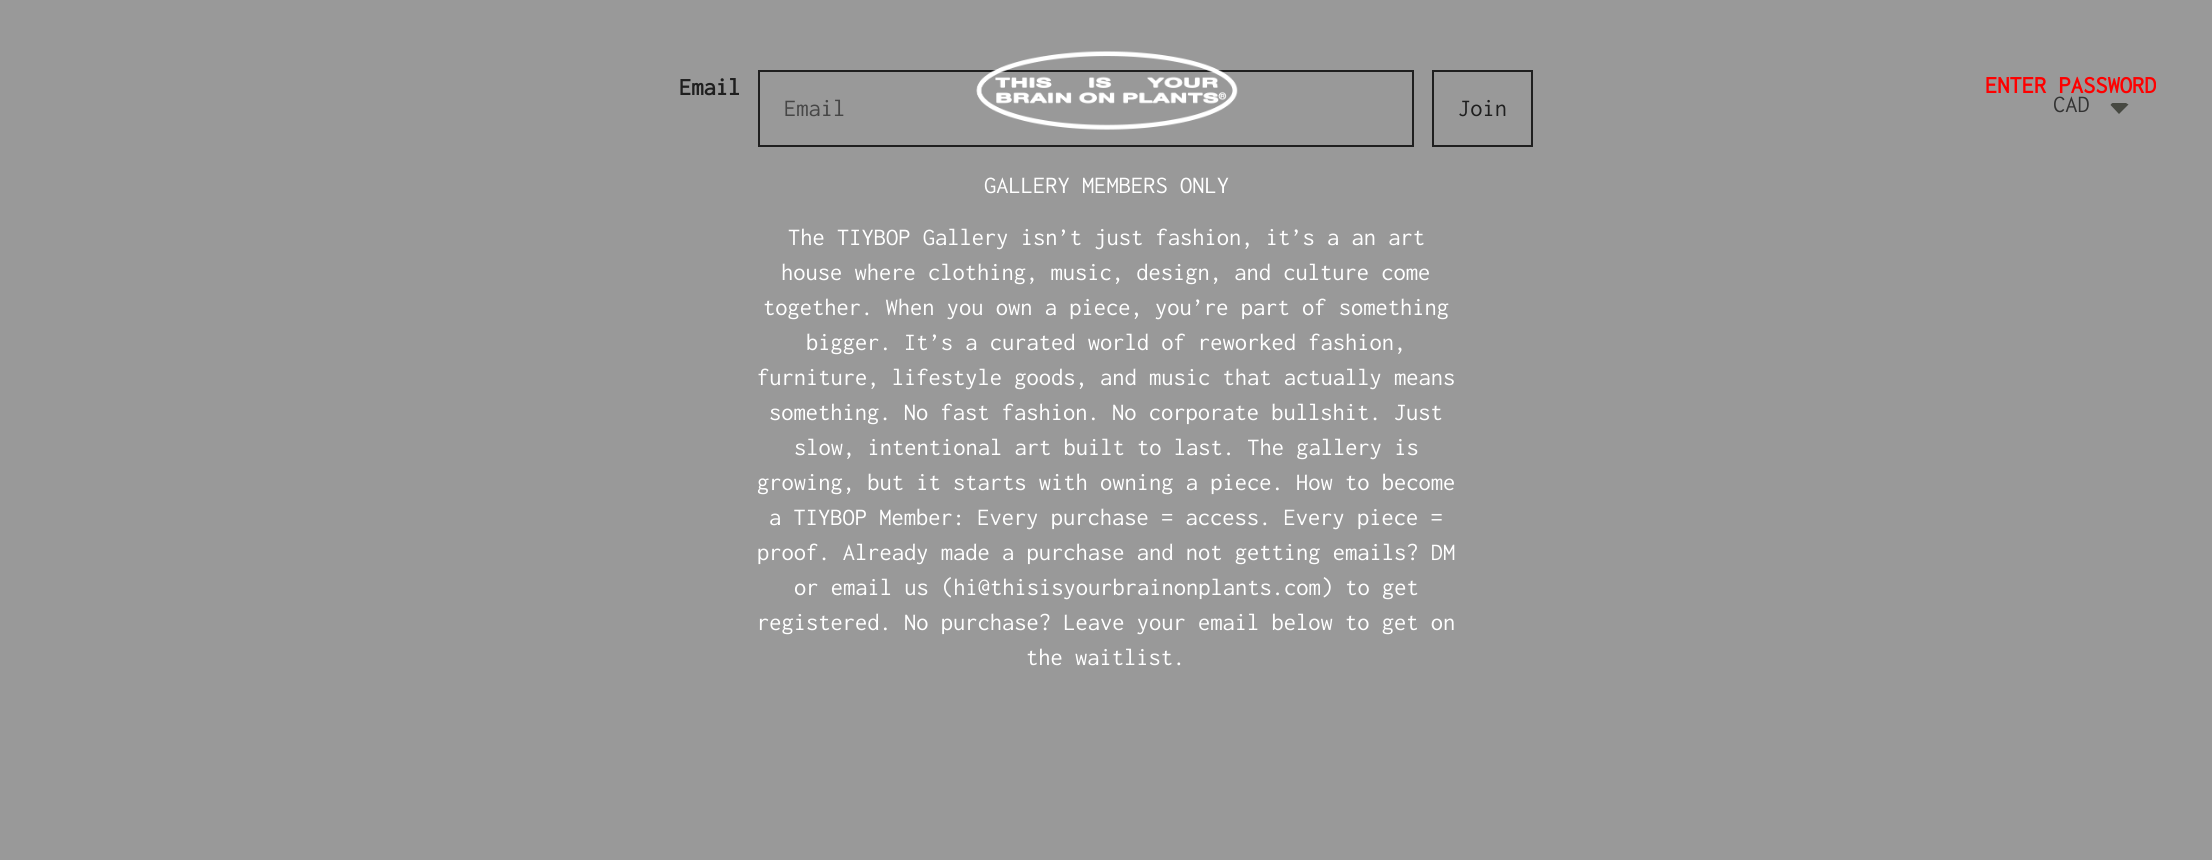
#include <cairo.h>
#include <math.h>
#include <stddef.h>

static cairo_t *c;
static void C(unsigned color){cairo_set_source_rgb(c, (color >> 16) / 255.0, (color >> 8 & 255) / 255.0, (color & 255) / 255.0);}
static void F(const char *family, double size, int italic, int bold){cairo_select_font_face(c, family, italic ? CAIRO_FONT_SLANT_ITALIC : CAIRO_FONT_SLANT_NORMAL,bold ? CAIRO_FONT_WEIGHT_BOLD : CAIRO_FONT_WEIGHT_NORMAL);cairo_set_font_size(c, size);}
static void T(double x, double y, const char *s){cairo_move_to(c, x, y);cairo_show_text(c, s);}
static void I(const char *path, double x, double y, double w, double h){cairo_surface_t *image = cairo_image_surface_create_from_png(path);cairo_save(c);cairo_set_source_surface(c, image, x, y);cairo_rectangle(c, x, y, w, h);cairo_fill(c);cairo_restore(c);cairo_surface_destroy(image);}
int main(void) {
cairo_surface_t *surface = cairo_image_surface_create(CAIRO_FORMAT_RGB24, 2212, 860);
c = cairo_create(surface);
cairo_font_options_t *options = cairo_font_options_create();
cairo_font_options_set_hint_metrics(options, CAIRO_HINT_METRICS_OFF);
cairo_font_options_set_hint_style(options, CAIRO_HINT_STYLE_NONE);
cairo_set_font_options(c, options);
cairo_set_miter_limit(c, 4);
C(0x999999);
cairo_paint(c);
cairo_rectangle(c,759,71,654,75);
C(0x1f1f1f);
cairo_stroke(c);
I("1.png",976,51,262,79);
F("Inconsolata",24.5,0,1);
C(0xfe0000);
T(1985,93,"ENTER PASSWORD");
F("Inconsolata",24.5,0,0);
C(0xffffff);
T(984,193,"GALLERY MEMBERS ONLY");
T(788,245,"The TIYBOP Gallery isn’t just fashion, it’s a an art");
T(781,280,"house where clothing, music, design, and culture come");
T(763,315,"together. When you own a piece, you’re part of something");
T(806,350,"bigger. It’s a curated world of reworked fashion,");
T(757,385,"furniture, lifestyle goods, and music that actually means");
T(769,420,"something. No fast fashion. No corporate bullshit. Just");
T(794,455,"slow, intentional art built to last. The gallery is");
T(757,490,"growing, but it starts with owning a piece. How to become");
T(769,525,"a TIYBOP Member: Every purchase = access. Every piece =");
T(757,560,"proof. Already made a purchase and not getting emails? DM");
T(794,595,"or email us (hi@thisisyourbrainonplants.com) to get");
T(757,630,"registered. No purchase? Leave your email below to get on");
T(1026,665,"the waitlist.");
F("Inconsolata",24.5,0,1);
C(0x1f1f1f);
T(679,95,"Email");
F("Inconsolata",24.5,0,0);
C(0x464646);
T(784,116,"Email");
cairo_rectangle(c,1433,71,99,75);
C(0x1f1f1f);
cairo_stroke(c);
T(1458,116,"Join");
C(0x333333);
T(2053,112,"CAD");
C(0x474942);
cairo_new_path(c);
cairo_move_to(c,2110.5,105);
cairo_curve_to(c,2111,104,2111.5,103.5,2112.5,103);
cairo_line_to(c,2126,103);
cairo_curve_to(c,2127,103.5,2127.5,104,2128.5,104.5);
cairo_line_to(c,2119,114);
cairo_close_path(c);
cairo_fill(c);
cairo_surface_write_to_png(surface, "o.png");
cairo_font_options_destroy(options);
cairo_destroy(c);
cairo_surface_destroy(surface);
return 0;
}
